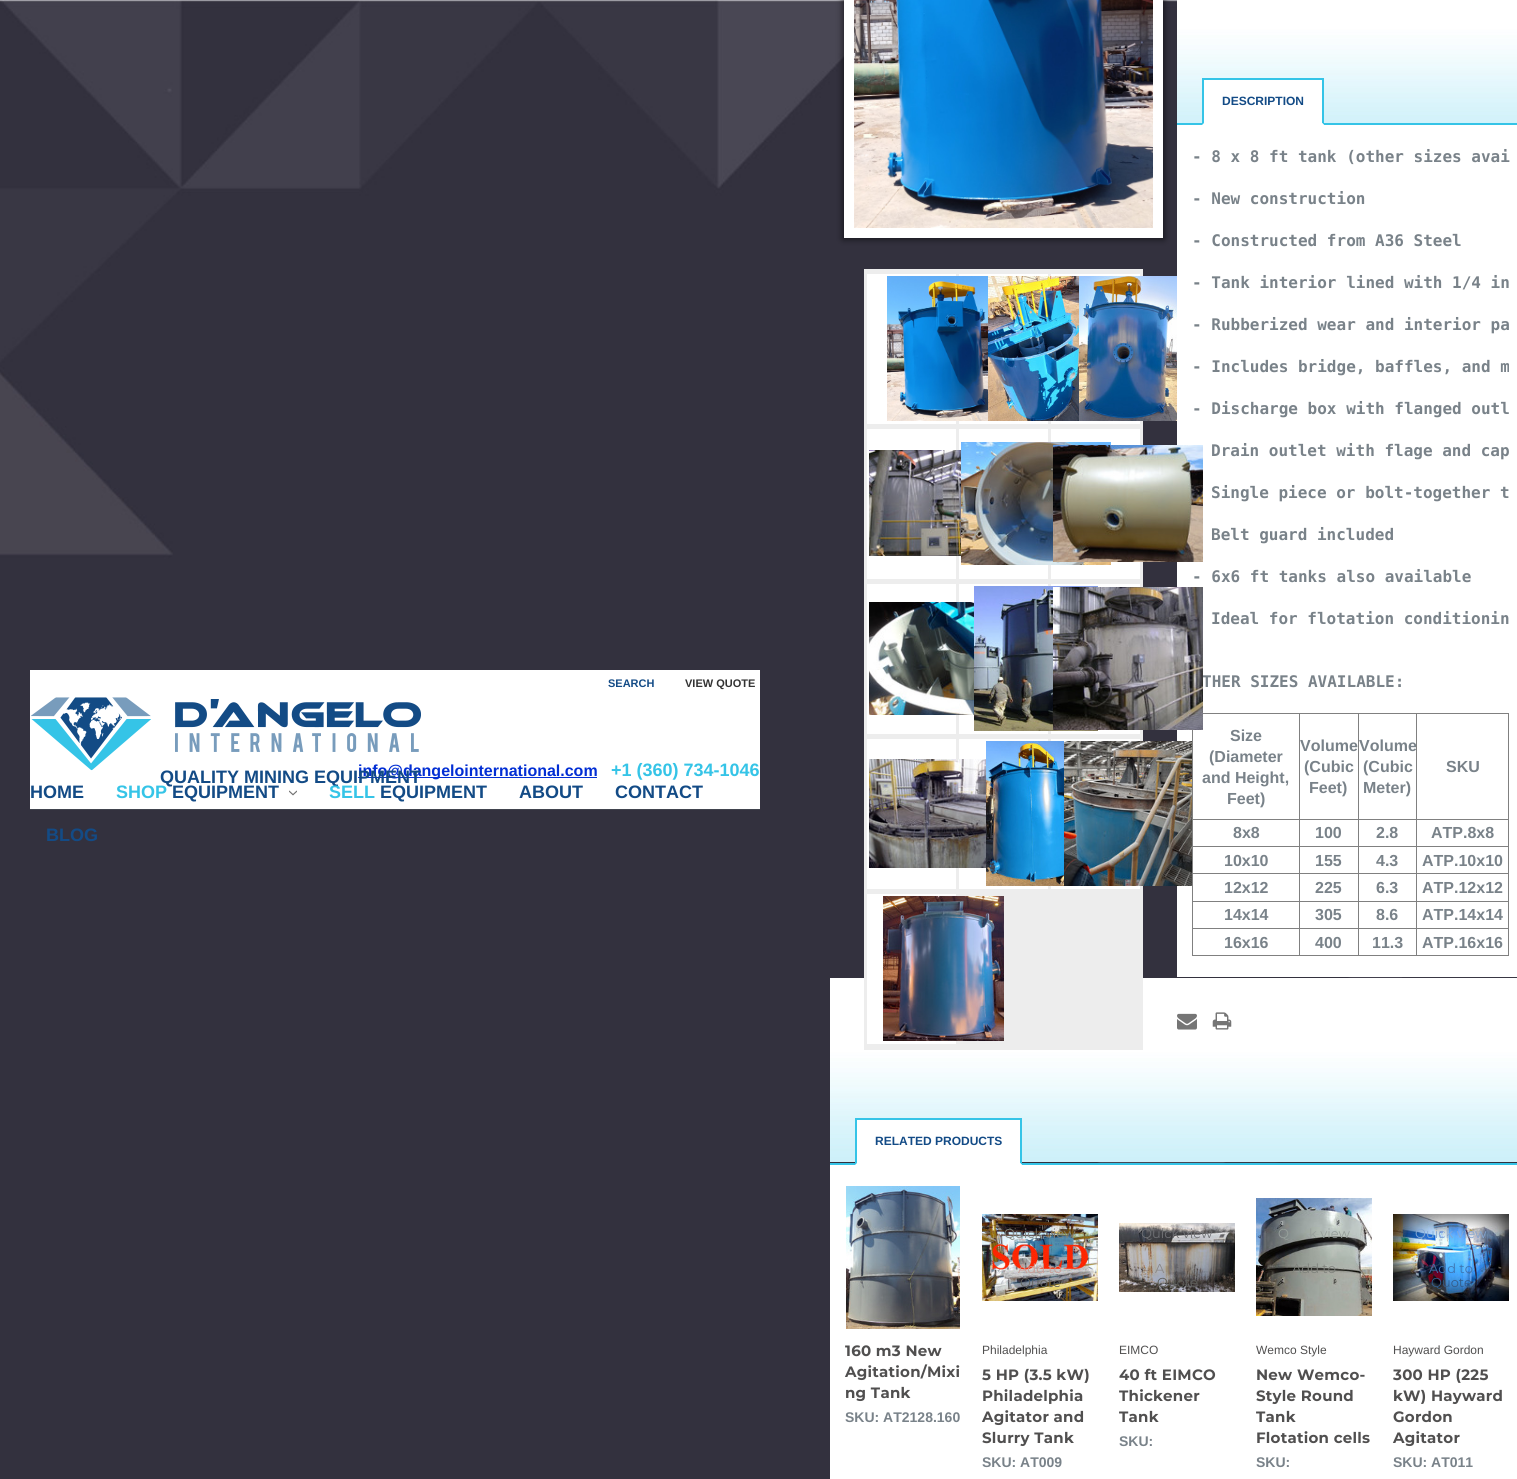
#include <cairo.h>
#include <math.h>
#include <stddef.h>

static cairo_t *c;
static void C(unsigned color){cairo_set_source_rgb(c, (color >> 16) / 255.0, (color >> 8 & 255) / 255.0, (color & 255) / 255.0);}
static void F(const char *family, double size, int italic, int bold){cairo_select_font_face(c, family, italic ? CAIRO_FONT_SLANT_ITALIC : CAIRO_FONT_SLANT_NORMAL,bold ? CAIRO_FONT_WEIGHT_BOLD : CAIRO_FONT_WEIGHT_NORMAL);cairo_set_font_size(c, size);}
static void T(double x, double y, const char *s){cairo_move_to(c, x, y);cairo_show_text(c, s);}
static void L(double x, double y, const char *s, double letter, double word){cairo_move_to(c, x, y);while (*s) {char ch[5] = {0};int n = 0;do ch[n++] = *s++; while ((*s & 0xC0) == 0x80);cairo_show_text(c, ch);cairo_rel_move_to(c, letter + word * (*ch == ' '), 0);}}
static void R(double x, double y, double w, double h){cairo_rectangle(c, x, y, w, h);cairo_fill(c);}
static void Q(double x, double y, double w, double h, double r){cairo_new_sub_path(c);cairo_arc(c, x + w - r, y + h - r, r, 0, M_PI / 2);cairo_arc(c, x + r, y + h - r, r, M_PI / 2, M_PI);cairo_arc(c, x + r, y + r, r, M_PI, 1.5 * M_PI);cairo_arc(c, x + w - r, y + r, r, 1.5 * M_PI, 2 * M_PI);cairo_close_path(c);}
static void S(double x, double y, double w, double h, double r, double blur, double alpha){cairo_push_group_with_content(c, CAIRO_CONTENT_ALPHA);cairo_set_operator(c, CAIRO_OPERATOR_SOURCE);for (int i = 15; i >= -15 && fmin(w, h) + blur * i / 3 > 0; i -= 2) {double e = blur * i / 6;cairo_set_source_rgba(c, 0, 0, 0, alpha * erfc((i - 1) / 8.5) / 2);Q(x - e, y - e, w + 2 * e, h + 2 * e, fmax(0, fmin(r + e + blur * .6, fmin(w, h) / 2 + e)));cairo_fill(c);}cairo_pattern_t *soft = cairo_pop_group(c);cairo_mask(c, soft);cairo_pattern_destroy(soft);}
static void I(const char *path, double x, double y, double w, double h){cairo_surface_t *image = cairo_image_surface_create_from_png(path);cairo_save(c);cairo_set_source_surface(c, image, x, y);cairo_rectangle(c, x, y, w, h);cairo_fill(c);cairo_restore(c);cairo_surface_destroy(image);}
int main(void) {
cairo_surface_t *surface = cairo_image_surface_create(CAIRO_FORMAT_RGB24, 1517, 1479);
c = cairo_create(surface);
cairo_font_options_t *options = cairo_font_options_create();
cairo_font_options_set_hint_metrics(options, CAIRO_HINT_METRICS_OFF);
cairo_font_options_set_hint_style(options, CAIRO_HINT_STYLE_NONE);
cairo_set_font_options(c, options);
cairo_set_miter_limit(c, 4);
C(0xffffff);
cairo_paint(c);
I("1.png",0,0,1517,1479);
C(0xffffff);
R(30,670,730,139);
C(0x41444e);
R(30,809,730,1);
F("Liberation Sans",11,0,1);
C(0x134b86);
T(608,687,"SEARCH");
C(0x333333);
T(685,687,"VIEW QUOTE");
C(0x022ed4);
R(358,777,239,1);
F("Liberation Sans",16,0,1);
T(358,776,"info@dangelointernational.com");
F("Liberation Sans",18,0,1);
C(0x134b86);
T(160,783,"QUALITY MINING EQUIPMENT");
I("2.png",31,697,390,74);
C(0x35c4e7);
T(611,776,"+1 (360) 734-1046");
C(0x134b86);
T(30,798,"HOME");
C(0x35c4e7);
T(116,798,"SHOP");
C(0x134b86);
T(172,798,"EQUIPMENT");
I("3.png",289,790,8,6);
C(0x35c4e7);
T(329,798,"SELL");
C(0x134b86);
T(380,798,"EQUIPMENT");
T(519,798,"ABOUT");
T(615,798,"CONTACT");
T(46,841,"BLOG");
I("4.png",830,978,687,184);
C(0x000000);
S(843,-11,321,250,0,3.5,.63);
cairo_rectangle(c,849,-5,309,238);
C(0xffffff);
cairo_set_line_width(c,10);
cairo_stroke(c);
I("5.png",854,0,299,228);
C(0xededed);
R(864,269,279,781);
C(0xffffff);
R(867,274,89,150);
R(959,274,89,150);
I("6.png",887,276,101,145);
R(1051,274,89,150);
I("7.png",988,276,91,145);
I("8.png",1079,276,98,145);
R(867,429,89,150);
R(959,429,89,150);
I("9.png",869,450,92,106);
R(1051,429,89,150);
I("10.png",961,442,150,123);
R(1177,125,340,852);
I("11.png",1053,445,150,117);
R(867,584,89,150);
R(959,584,89,150);
I("12.png",869,602,105,113);
R(1051,584,89,150);
I("13.png",974,586,124,145);
F("DejaVu Sans Mono",16,0,1);
C(0x798289);
T(1202,687,"THER SIZES AVAILABLE:");
I("14.png",1053,587,150,143);
C(0xffffff);
R(867,739,89,150);
R(959,739,89,150);
I("15.png",869,759,117,109);
R(1051,739,89,150);
I("16.png",986,741,78,145);
I("17.png",1064,741,128,145);
R(867,894,89,150);
I("18.png",883,896,121,145);
I("19.png",1177,0,340,123);
C(0x35c4e7);
R(1177,123,340,2);
C(0xffffff);
R(1202,80,122,45);
C(0x35c4e7);
R(1202,78,122,2);
cairo_new_path(c);
cairo_move_to(c,1324,78);
cairo_line_to(c,1324,125);
cairo_line_to(c,1322,123);
cairo_line_to(c,1322,80);
cairo_close_path(c);
cairo_fill(c);
C(0xffffff);
cairo_new_path(c);
cairo_move_to(c,1324,125);
cairo_line_to(c,1202,125);
cairo_line_to(c,1204,123);
cairo_line_to(c,1322,123);
cairo_close_path(c);
cairo_fill(c);
C(0x35c4e7);
cairo_new_path(c);
cairo_move_to(c,1202,125);
cairo_line_to(c,1202,78);
cairo_line_to(c,1204,80);
cairo_line_to(c,1204,123);
cairo_close_path(c);
cairo_fill(c);
F("Liberation Sans",12,0,1);
C(0x134b86);
T(1222,105,"DESCRIPTION");
F("DejaVu Sans Mono",16,0,1);
C(0x798289);
T(1192,162,"- 8 x 8 ft tank (other sizes avai");
T(1192,204,"- New construction");
T(1192,246,"- Constructed from A36 Steel");
T(1192,288,"- Tank interior lined with 1/4 in");
T(1192,330,"- Rubberized wear and interior pa");
cairo_save(c);
cairo_rectangle(c,1192,146,317,567);
cairo_clip(c);
T(1192,372,"- Includes bridge, baffles, and m");
cairo_restore(c);
T(1192,414,"- Discharge box with flanged outl");
T(1211,456,"Drain outlet with flage and cap");
T(1211,498,"Single piece or bolt-together t");
T(1211,540,"Belt guard included");
T(1192,582,"- 6x6 ft tanks also available");
T(1211,624,"Ideal for flotation conditionin");
C(0x808080);
R(1203,713,306,1);
R(1508,713,1,243);
R(1192,955,317,1);
R(1192,730,1,226);
F("Liberation Sans",16,0,1);
C(0x798289);
T(1230,741,"Size");
T(1209,762,"(Diameter");
T(1202,783,"and Height,");
T(1227,804,"Feet)");
C(0x808080);
R(1416,819,93,1);
R(1416,846,93,1);
R(1416,873,93,1);
R(1416,901,93,1);
R(1416,928,93,1);
R(1416,928,1,28);
R(1358,928,59,1);
R(1416,901,1,28);
R(1358,901,59,1);
R(1416,873,1,29);
R(1358,873,59,1);
R(1416,846,1,28);
R(1358,846,59,1);
R(1416,819,1,28);
R(1358,819,59,1);
R(1358,928,1,28);
R(1299,928,60,1);
R(1358,901,1,28);
R(1299,901,60,1);
R(1358,873,1,29);
R(1299,873,60,1);
R(1358,846,1,28);
R(1299,846,60,1);
R(1358,819,1,28);
R(1299,819,60,1);
R(1299,928,1,28);
R(1192,928,108,1);
R(1299,901,1,28);
R(1192,901,108,1);
R(1299,873,1,29);
R(1192,873,108,1);
R(1299,846,1,28);
R(1192,846,108,1);
R(1299,819,1,28);
R(1192,819,108,1);
R(1299,713,1,107);
C(0x798289);
T(1300,751,"Volume");
T(1304,772,"(Cubic");
T(1309,793,"Feet)");
C(0x808080);
R(1358,713,1,107);
C(0x798289);
T(1359,751,"Volume");
T(1363,772,"(Cubic");
T(1363,793,"Meter)");
C(0x808080);
R(1416,713,1,107);
C(0x798289);
T(1446,772,"SKU");
T(1233,838,"8x8");
T(1315,838,"100");
T(1376,838,"2.8");
T(1431,838,"ATP.8x8");
T(1224,866,"10x10");
T(1315,866,"155");
T(1376,866,"4.3");
T(1422,866,"ATP.10x10");
T(1224,893,"12x12");
T(1315,893,"225");
T(1376,893,"6.3");
T(1422,893,"ATP.12x12");
T(1224,920,"14x14");
T(1315,920,"305");
T(1376,920,"8.6");
T(1422,920,"ATP.14x14");
T(1224,948,"16x16");
T(1315,948,"400");
T(1372,948,"11.3");
T(1422,948,"ATP.16x16");
I("20.png",1177,1013,20,17);
I("21.png",1212,1012,20,18);
C(0x35c4e7);
R(830,1163,687,2);
C(0xffffff);
R(855,1120,167,45);
C(0x35c4e7);
R(855,1118,167,2);
cairo_new_path(c);
cairo_move_to(c,1022,1118);
cairo_line_to(c,1022,1165);
cairo_line_to(c,1020,1163);
cairo_line_to(c,1020,1120);
cairo_close_path(c);
cairo_fill(c);
C(0xffffff);
cairo_new_path(c);
cairo_move_to(c,1022,1165);
cairo_line_to(c,855,1165);
cairo_line_to(c,857,1163);
cairo_line_to(c,1020,1163);
cairo_close_path(c);
cairo_fill(c);
C(0x35c4e7);
cairo_new_path(c);
cairo_move_to(c,855,1165);
cairo_line_to(c,855,1118);
cairo_line_to(c,857,1120);
cairo_line_to(c,857,1163);
cairo_close_path(c);
cairo_fill(c);
F("Liberation Sans",12,0,1);
C(0x134b86);
T(875,1145,"RELATED PRODUCTS");
C(0xffffff);
R(830,1165,687,314);
I("22.png",846,1186,114,143);
F("Montserrat",15,0,1);
C(0x504f4f);
L(845,1356,"160 m3 New",.25,0);
L(845,1377,"Agitation/Mixi",.25,0);
L(845,1398,"ng Tank",.25,0);
F("Liberation Sans",14,0,1);
C(0x798289);
T(845,1422,"SKU: AT2128.160");
I("23.png",982,1214,116,87);
F("Montserrat",13,0,0);
C(0x7f827c);
T(1004,1238,"Quick view");
C(0xc89d97);
T(1018,1273,"Add to");
C(0x60615d);
T(1020,1287,"Quote");
F("Liberation Sans",12,0,0);
C(0x504f4f);
T(982,1354,"Philadelphia");
F("Montserrat",15,0,1);
L(982,1380,"5 HP (3.5 kW)",.25,0);
L(982,1401,"Philadelphia",.25,0);
L(982,1422,"Agitator and",.25,0);
L(982,1443,"Slurry Tank",.25,0);
F("Liberation Sans",14,0,1);
C(0x798289);
T(982,1467,"SKU: AT009");
I("24.png",1119,1223,116,69);
F("Montserrat",13,0,0);
C(0x6f7074);
T(1141,1238,"Quick view");
C(0x8a8787);
T(1155,1273,"A");
C(0x60615d);
T(1157,1287,"Quote");
F("Liberation Sans",12,0,0);
C(0x504f4f);
T(1119,1354,"EIMCO");
F("Montserrat",15,0,1);
L(1119,1380,"40 ft EIMCO",.25,0);
L(1119,1401,"Thickener",.25,0);
L(1119,1422,"Tank",.25,0);
F("Liberation Sans",14,0,1);
C(0x798289);
T(1119,1446,"SKU:");
I("25.png",1256,1198,116,118);
F("Montserrat",13,0,0);
C(0x969e9a);
T(1278,1238,"Q");
T(1309,1238,"k view");
C(0x7f827c);
T(1292,1273,"Add to");
F("Liberation Sans",12,0,0);
C(0x504f4f);
T(1256,1354,"Wemco Style");
F("Montserrat",15,0,1);
L(1256,1380,"New Wemco-",.25,0);
L(1256,1401,"Style Round",.25,0);
L(1256,1422,"Tank",.25,0);
L(1256,1443,"Flotation cells",.25,0);
F("Liberation Sans",14,0,1);
C(0x798289);
T(1256,1467,"SKU:");
I("26.png",1393,1214,116,87);
F("Montserrat",13,0,0);
C(0x84a7d2);
T(1415,1238,"Quick view");
C(0x3f74af);
T(1429,1273,"Add to");
C(0x345c8a);
T(1431,1287,"Quote");
F("Liberation Sans",12,0,0);
C(0x504f4f);
T(1393,1354,"Hayward Gordon");
F("Montserrat",15,0,1);
L(1393,1380,"300 HP (225",.25,0);
L(1393,1401,"kW) Hayward",.25,0);
L(1393,1422,"Gordon",.25,0);
L(1393,1443,"Agitator",.25,0);
F("Liberation Sans",14,0,1);
C(0x798289);
T(1393,1467,"SKU: AT011");
cairo_surface_write_to_png(surface, "o.png");
cairo_font_options_destroy(options);
cairo_destroy(c);
cairo_surface_destroy(surface);
return 0;
}
